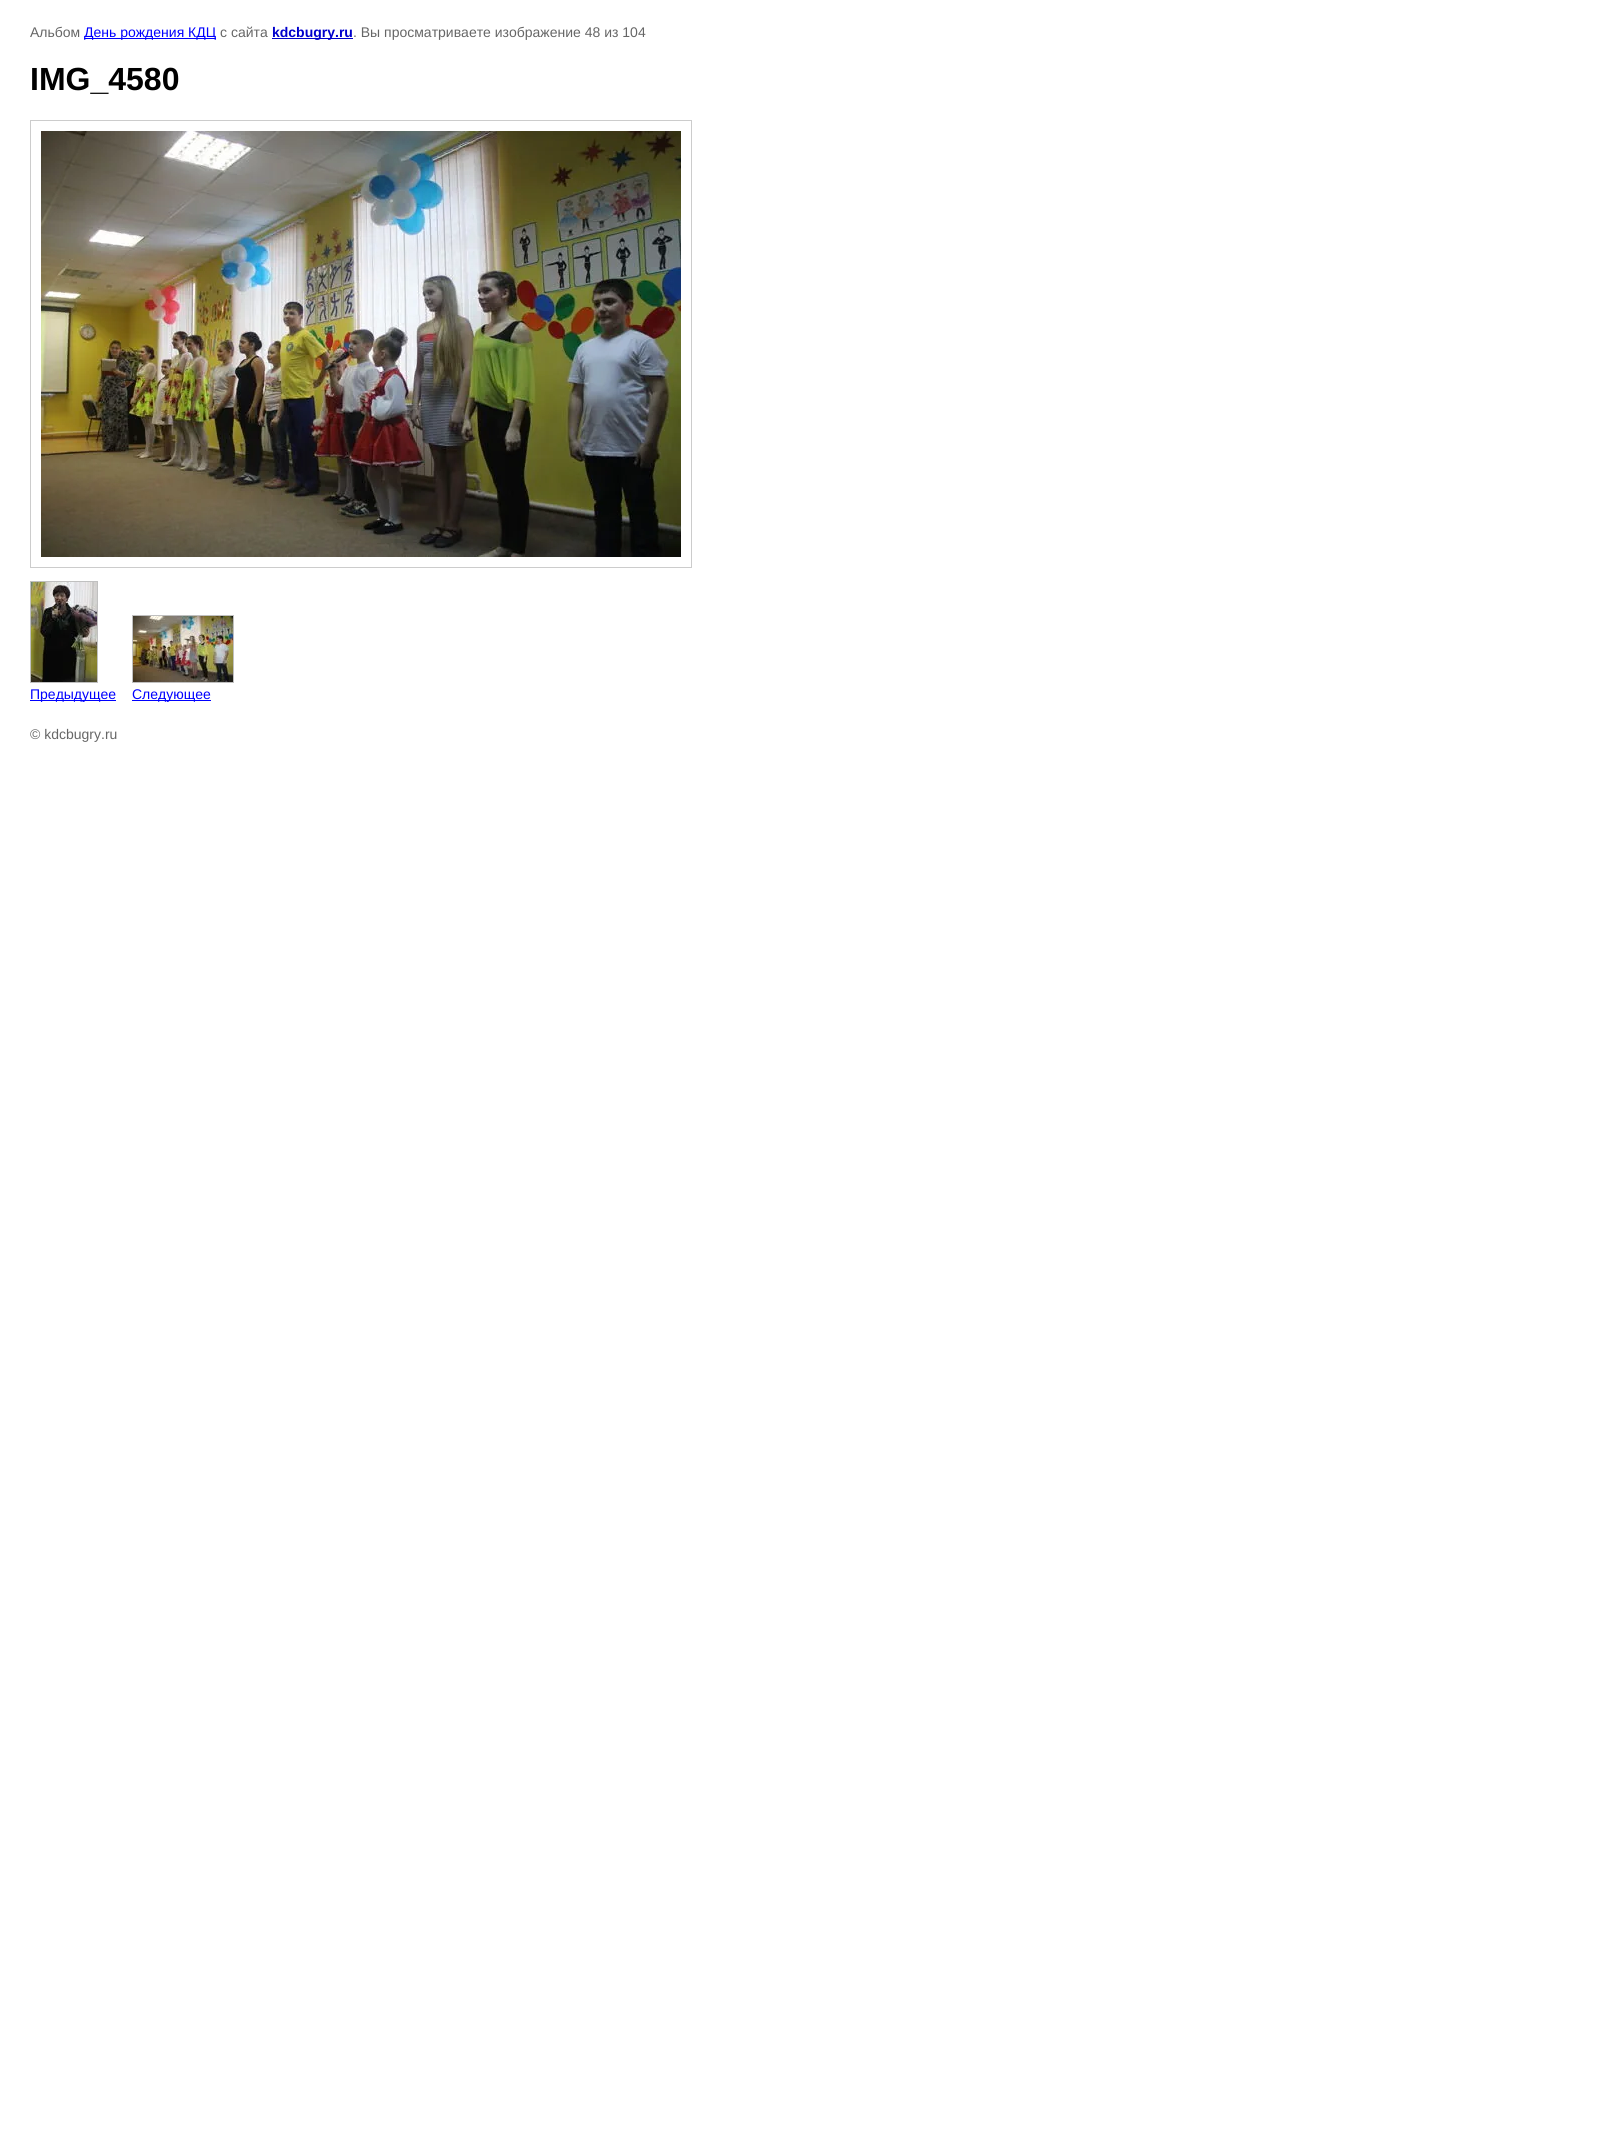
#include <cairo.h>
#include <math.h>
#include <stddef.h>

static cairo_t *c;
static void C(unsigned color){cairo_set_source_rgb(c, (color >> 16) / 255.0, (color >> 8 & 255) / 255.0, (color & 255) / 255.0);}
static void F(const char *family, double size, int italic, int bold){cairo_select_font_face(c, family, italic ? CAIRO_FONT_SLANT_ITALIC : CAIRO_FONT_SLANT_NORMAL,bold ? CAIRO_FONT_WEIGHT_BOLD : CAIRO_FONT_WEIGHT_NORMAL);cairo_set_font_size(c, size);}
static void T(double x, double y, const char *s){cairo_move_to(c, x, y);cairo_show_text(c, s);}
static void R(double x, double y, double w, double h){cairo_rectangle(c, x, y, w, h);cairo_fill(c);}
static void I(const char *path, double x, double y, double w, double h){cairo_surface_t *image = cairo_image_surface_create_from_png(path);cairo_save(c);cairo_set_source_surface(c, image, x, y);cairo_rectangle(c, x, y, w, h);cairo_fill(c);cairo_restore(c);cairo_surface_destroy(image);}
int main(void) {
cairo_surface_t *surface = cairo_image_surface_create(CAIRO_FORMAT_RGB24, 1605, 2155);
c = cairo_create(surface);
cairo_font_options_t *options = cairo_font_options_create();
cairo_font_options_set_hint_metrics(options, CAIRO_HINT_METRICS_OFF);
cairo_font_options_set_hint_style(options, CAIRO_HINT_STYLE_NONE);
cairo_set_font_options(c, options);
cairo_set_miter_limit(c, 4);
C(0xffffff);
cairo_paint(c);
F("Liberation Sans",14,0,0);
C(0x666666);
T(30,37,"Альбом");
C(0x0000ff);
R(84,38,132,1);
T(84,37,"День рождения КДЦ");
C(0x666666);
T(220,37,"с сайта");
C(0x0000cc);
R(272,38,81,1);
F("Liberation Sans",14,0,1);
T(272,37,"kdcbugry.ru");
F("Liberation Sans",14,0,0);
C(0x666666);
T(353,37,". Вы просматриваете изображение 48 из 104");
F("Liberation Sans",32,0,1);
C(0x000000);
T(30,90,"IMG_4580");
cairo_rectangle(c,30.5,120.5,661,447);
C(0xcccccc);
cairo_set_line_width(c,1);
cairo_stroke(c);
I("1.png",41,131,640,426);
cairo_rectangle(c,30.5,581.5,67,101);
C(0xc0c0c0);
cairo_stroke(c);
I("2.png",31,582,66,100);
C(0x0000ff);
R(30,700,86,1);
F("Liberation Sans",14,0,0);
T(30,699,"Предыдущее");
cairo_rectangle(c,132.5,615.5,101,67);
C(0xc0c0c0);
cairo_stroke(c);
I("3.png",133,616,100,66);
C(0x0000ff);
R(132,700,79,1);
T(132,699,"Следующее");
C(0x666666);
T(30,739,"© kdcbugry.ru");
cairo_surface_write_to_png(surface, "o.png");
cairo_font_options_destroy(options);
cairo_destroy(c);
cairo_surface_destroy(surface);
return 0;
}
